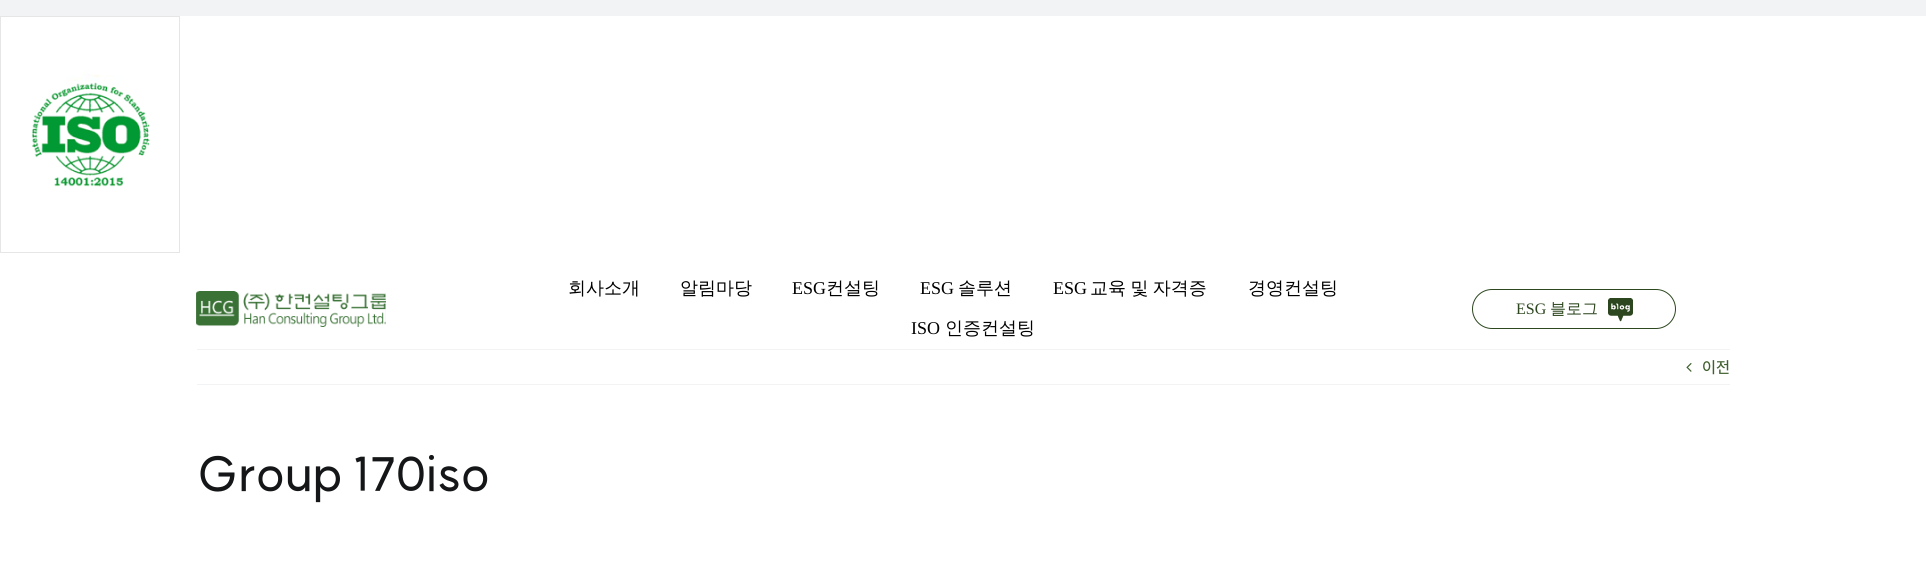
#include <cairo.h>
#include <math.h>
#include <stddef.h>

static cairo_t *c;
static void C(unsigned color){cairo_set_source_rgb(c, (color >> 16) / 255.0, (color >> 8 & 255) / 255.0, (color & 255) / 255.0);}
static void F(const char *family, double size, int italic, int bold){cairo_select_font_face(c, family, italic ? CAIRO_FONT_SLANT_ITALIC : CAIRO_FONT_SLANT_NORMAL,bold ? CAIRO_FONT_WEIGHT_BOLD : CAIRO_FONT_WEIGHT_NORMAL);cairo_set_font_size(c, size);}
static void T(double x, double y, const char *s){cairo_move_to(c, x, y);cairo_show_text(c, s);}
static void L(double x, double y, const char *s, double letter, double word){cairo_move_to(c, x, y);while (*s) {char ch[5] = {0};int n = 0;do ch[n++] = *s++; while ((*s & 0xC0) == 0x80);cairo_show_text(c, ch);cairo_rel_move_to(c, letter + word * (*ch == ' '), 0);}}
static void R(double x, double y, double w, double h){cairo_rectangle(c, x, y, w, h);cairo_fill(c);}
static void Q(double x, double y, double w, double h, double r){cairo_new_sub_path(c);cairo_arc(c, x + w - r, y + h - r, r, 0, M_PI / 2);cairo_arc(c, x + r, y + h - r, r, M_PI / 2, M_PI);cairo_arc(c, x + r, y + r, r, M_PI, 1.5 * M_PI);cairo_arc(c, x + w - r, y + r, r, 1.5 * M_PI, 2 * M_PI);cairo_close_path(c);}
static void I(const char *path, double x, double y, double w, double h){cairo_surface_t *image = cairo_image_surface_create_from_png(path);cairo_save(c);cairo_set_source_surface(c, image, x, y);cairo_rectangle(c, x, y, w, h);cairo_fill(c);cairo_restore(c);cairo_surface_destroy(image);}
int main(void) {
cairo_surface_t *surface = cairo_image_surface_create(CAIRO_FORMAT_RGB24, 1926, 573);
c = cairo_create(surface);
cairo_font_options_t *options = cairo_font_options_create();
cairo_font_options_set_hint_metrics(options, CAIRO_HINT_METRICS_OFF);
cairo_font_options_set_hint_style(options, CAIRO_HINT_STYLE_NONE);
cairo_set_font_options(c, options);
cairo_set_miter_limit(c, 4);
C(0xf2f3f5);
cairo_paint(c);
C(0xffffff);
R(0,16,1926,557);
I("1.png",0,16,180,237);
I("2.png",196,291,190,36);
F("WenQuanYi Zen Hei Medium",18,0,0);
C(0x000000);
T(568,294,"회사소개");
T(680,294,"알림마당");
F("Liberation Serif",18,0,0);
T(792,294,"ESG");
F("WenQuanYi Zen Hei Medium",18,0,0);
T(826,294,"컨설팅");
F("Liberation Serif",18,0,0);
T(920,294,"ESG");
F("WenQuanYi Zen Hei Medium",18,0,0);
T(958,294,"솔루션");
F("Liberation Serif",18,0,0);
T(1053,294,"ESG");
F("WenQuanYi Zen Hei Medium",18,0,0);
L(1090,294,"교육 및 자격증",0,-1);
T(1248,294,"경영컨설팅");
F("Liberation Serif",18,0,0);
T(911,334,"ISO");
F("WenQuanYi Zen Hei Medium",18,0,0);
T(945,334,"인증컨설팅");
Q(1472.5,289.5,203,39,19.5);
C(0x2d471f);
cairo_set_line_width(c,1);
cairo_stroke(c);
F("Liberation Serif",16,0,0);
T(1516,314,"ESG");
F("WenQuanYi Zen Hei Medium",16,0,0);
T(1550,314,"블로그");
I("3.png",1608,298,25,24);
C(0xf2f3f5);
R(197,349,1533,1);
R(197,384,1533,1);
I("4.png",1686,363,6,9);
F("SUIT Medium",16,0,0);
C(0x416030);
T(1702,373,"이전");
F("SUIT Medium",48,0,0);
C(0x141617);
T(197,491,"Group 170iso");
cairo_surface_write_to_png(surface, "o.png");
cairo_font_options_destroy(options);
cairo_destroy(c);
cairo_surface_destroy(surface);
return 0;
}
